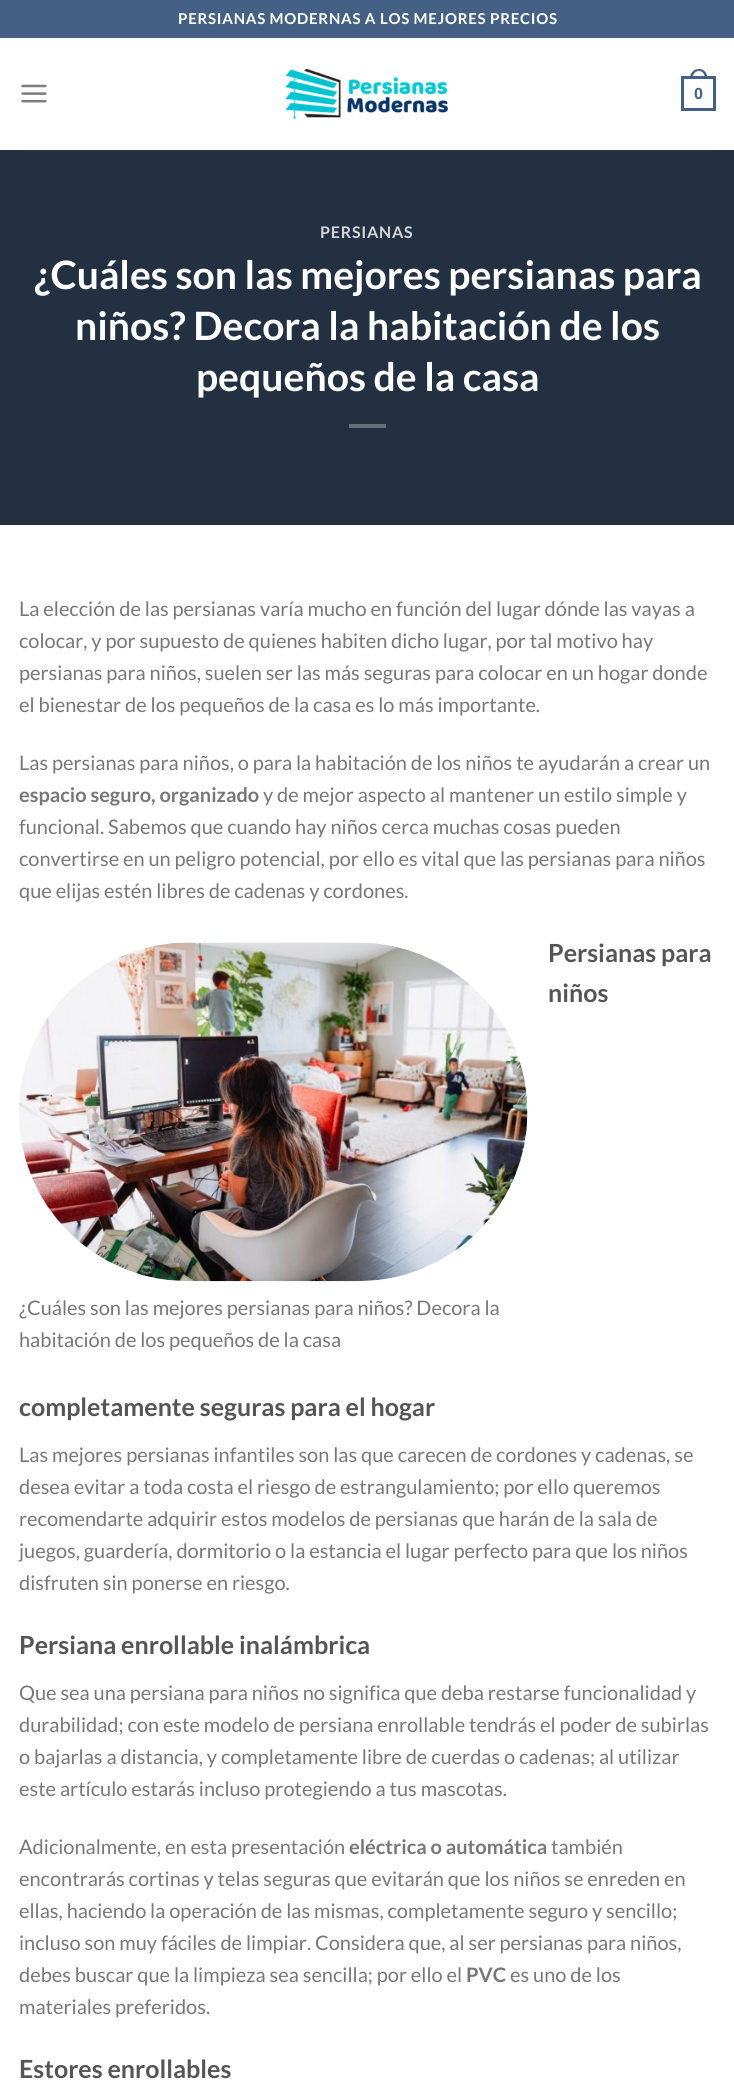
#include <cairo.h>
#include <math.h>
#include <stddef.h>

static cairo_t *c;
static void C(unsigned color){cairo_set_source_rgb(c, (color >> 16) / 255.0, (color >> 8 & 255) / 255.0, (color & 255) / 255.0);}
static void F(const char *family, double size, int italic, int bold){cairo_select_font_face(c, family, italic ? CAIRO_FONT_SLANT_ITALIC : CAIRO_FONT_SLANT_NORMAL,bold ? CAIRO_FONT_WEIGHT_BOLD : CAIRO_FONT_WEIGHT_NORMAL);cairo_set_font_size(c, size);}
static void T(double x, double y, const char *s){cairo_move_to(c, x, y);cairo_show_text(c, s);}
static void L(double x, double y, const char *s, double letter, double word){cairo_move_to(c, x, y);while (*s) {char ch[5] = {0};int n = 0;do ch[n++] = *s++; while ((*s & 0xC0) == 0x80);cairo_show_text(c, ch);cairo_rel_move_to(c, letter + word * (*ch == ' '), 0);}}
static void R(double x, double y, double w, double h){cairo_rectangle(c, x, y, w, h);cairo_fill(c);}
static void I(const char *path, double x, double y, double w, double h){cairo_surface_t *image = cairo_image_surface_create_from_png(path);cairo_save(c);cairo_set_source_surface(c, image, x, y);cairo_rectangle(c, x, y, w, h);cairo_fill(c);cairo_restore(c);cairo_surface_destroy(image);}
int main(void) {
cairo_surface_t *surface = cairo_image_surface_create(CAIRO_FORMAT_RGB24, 734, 2086);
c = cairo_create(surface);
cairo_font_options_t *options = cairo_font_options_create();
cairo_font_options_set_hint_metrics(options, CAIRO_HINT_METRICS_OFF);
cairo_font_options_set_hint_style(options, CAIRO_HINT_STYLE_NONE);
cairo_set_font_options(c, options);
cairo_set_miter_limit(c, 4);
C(0xffffff);
cairo_paint(c);
C(0x446084);
R(0,0,734,38);
F("Lato",15,0,1);
C(0xffffff);
L(178,24,"PERSIANAS MODERNAS A LOS MEJORES PRECIOS",.75,0);
I("1.png",21,84,26,19);
I("2.png",285,68,163,51);
cairo_rectangle(c,682.5,77.5,32,32);
C(0x446084);
cairo_set_line_width(c,3);
cairo_stroke(c);
cairo_set_fill_rule(c,CAIRO_FILL_RULE_EVEN_ODD);
cairo_new_path(c);
cairo_move_to(c,699,69);
cairo_curve_to(c,704.5,69,707.5,73.5,707.5,79);
cairo_line_to(c,690,79);
cairo_curve_to(c,690,73.5,693,69,699,69);
cairo_close_path(c);
cairo_move_to(c,699,71);
cairo_curve_to(c,703,71,705,75,705,79);
cairo_line_to(c,692.5,79);
cairo_curve_to(c,692.5,75,694.5,71,699,71);
cairo_close_path(c);
cairo_fill(c);
F("Liberation Sans",16,0,1);
T(694,99,"0");
C(0x223042);
R(0,150,734,375);
C(0x2b3747);
R(19,150,697,1);
F("Lato",16,0,1);
C(0xd3d6d9);
L(320,238,"PERSIANAS",.75,0);
F("Lato",39.1,0,1);
C(0xffffff);
T(34,289,"¿Cuáles son las mejores persianas para");
T(75,340,"niños? Decora la habitación de los");
T(196,391,"pequeños de la casa");
C(0x646e7b);
R(349,424,37,4);
F("Lato",20,0,0);
C(0x777777);
T(19,616,"La elección de las persianas varía mucho en función del lugar dónde las vayas a");
T(19,648,"colocar, y por supuesto de quienes habiten dicho lugar, por tal motivo hay");
T(19,680,"persianas para niños, suelen ser las más seguras para colocar en un hogar donde");
T(19,712,"el bienestar de los pequeños de la casa es lo más importante.");
T(19,770,"Las persianas para niños, o para la habitación de los niños te ayudarán a crear un");
F("Lato",20,0,1);
T(19,802,"espacio seguro, organizado");
F("Lato",20,0,0);
T(263,802,"y de mejor aspecto al mantener un estilo simple y");
T(19,834,"funcional. Sabemos que cuando hay niños cerca muchas cosas pueden");
T(19,866,"convertirse en un peligro potencial, por ello es vital que las persianas para niños");
T(19,898,"que elijas estén libres de cadenas y cordones.");
F("Lato",25,0,1);
C(0x555555);
T(548,962,"Persianas para");
T(548,1002,"niños");
T(19,1416,"completamente seguras para el hogar");
I("3.png",19,942,509,340);
F("Lato",20,0,0);
C(0x777777);
T(19,1315,"¿Cuáles son las mejores persianas para niños? Decora la");
T(19,1347,"habitación de los pequeños de la casa");
T(19,1462,"Las mejores persianas infantiles son las que carecen de cordones y cadenas, se");
T(19,1494,"desea evitar a toda costa el riesgo de estrangulamiento; por ello queremos");
T(19,1526,"recomendarte adquirir estos modelos de persianas que harán de la sala de");
T(19,1558,"juegos, guardería, dormitorio o la estancia el lugar perfecto para que los niños");
T(19,1590,"disfruten sin ponerse en riesgo.");
F("Lato",25,0,1);
C(0x555555);
T(19,1654,"Persiana enrollable inalámbrica");
F("Lato",20,0,0);
C(0x777777);
T(19,1700,"Que sea una persiana para niños no significa que deba restarse funcionalidad y");
T(19,1732,"durabilidad; con este modelo de persiana enrollable tendrás el poder de subirlas");
T(19,1764,"o bajarlas a distancia, y completamente libre de cuerdas o cadenas; al utilizar");
T(19,1796,"este artículo estarás incluso protegiendo a tus mascotas.");
T(19,1854,"Adicionalmente, en esta presentación");
F("Lato",20,0,1);
T(349,1854,"eléctrica o automática");
F("Lato",20,0,0);
T(551,1854,"también");
T(19,1886,"encontrarás cortinas y telas seguras que evitarán que los niños se enreden en");
T(19,1918,"ellas, haciendo la operación de las mismas, completamente seguro y sencillo;");
T(19,1950,"incluso son muy fáciles de limpiar. Considera que, al ser persianas para niños,");
T(19,1982,"debes buscar que la limpieza sea sencilla; por ello el");
F("Lato",20,0,1);
T(466,1982,"PVC");
F("Lato",20,0,0);
T(510,1982,"es uno de los");
T(19,2014,"materiales preferidos.");
F("Lato",25,0,1);
C(0x555555);
T(19,2078,"Estores enrollables");
cairo_surface_write_to_png(surface, "o.png");
cairo_font_options_destroy(options);
cairo_destroy(c);
cairo_surface_destroy(surface);
return 0;
}
